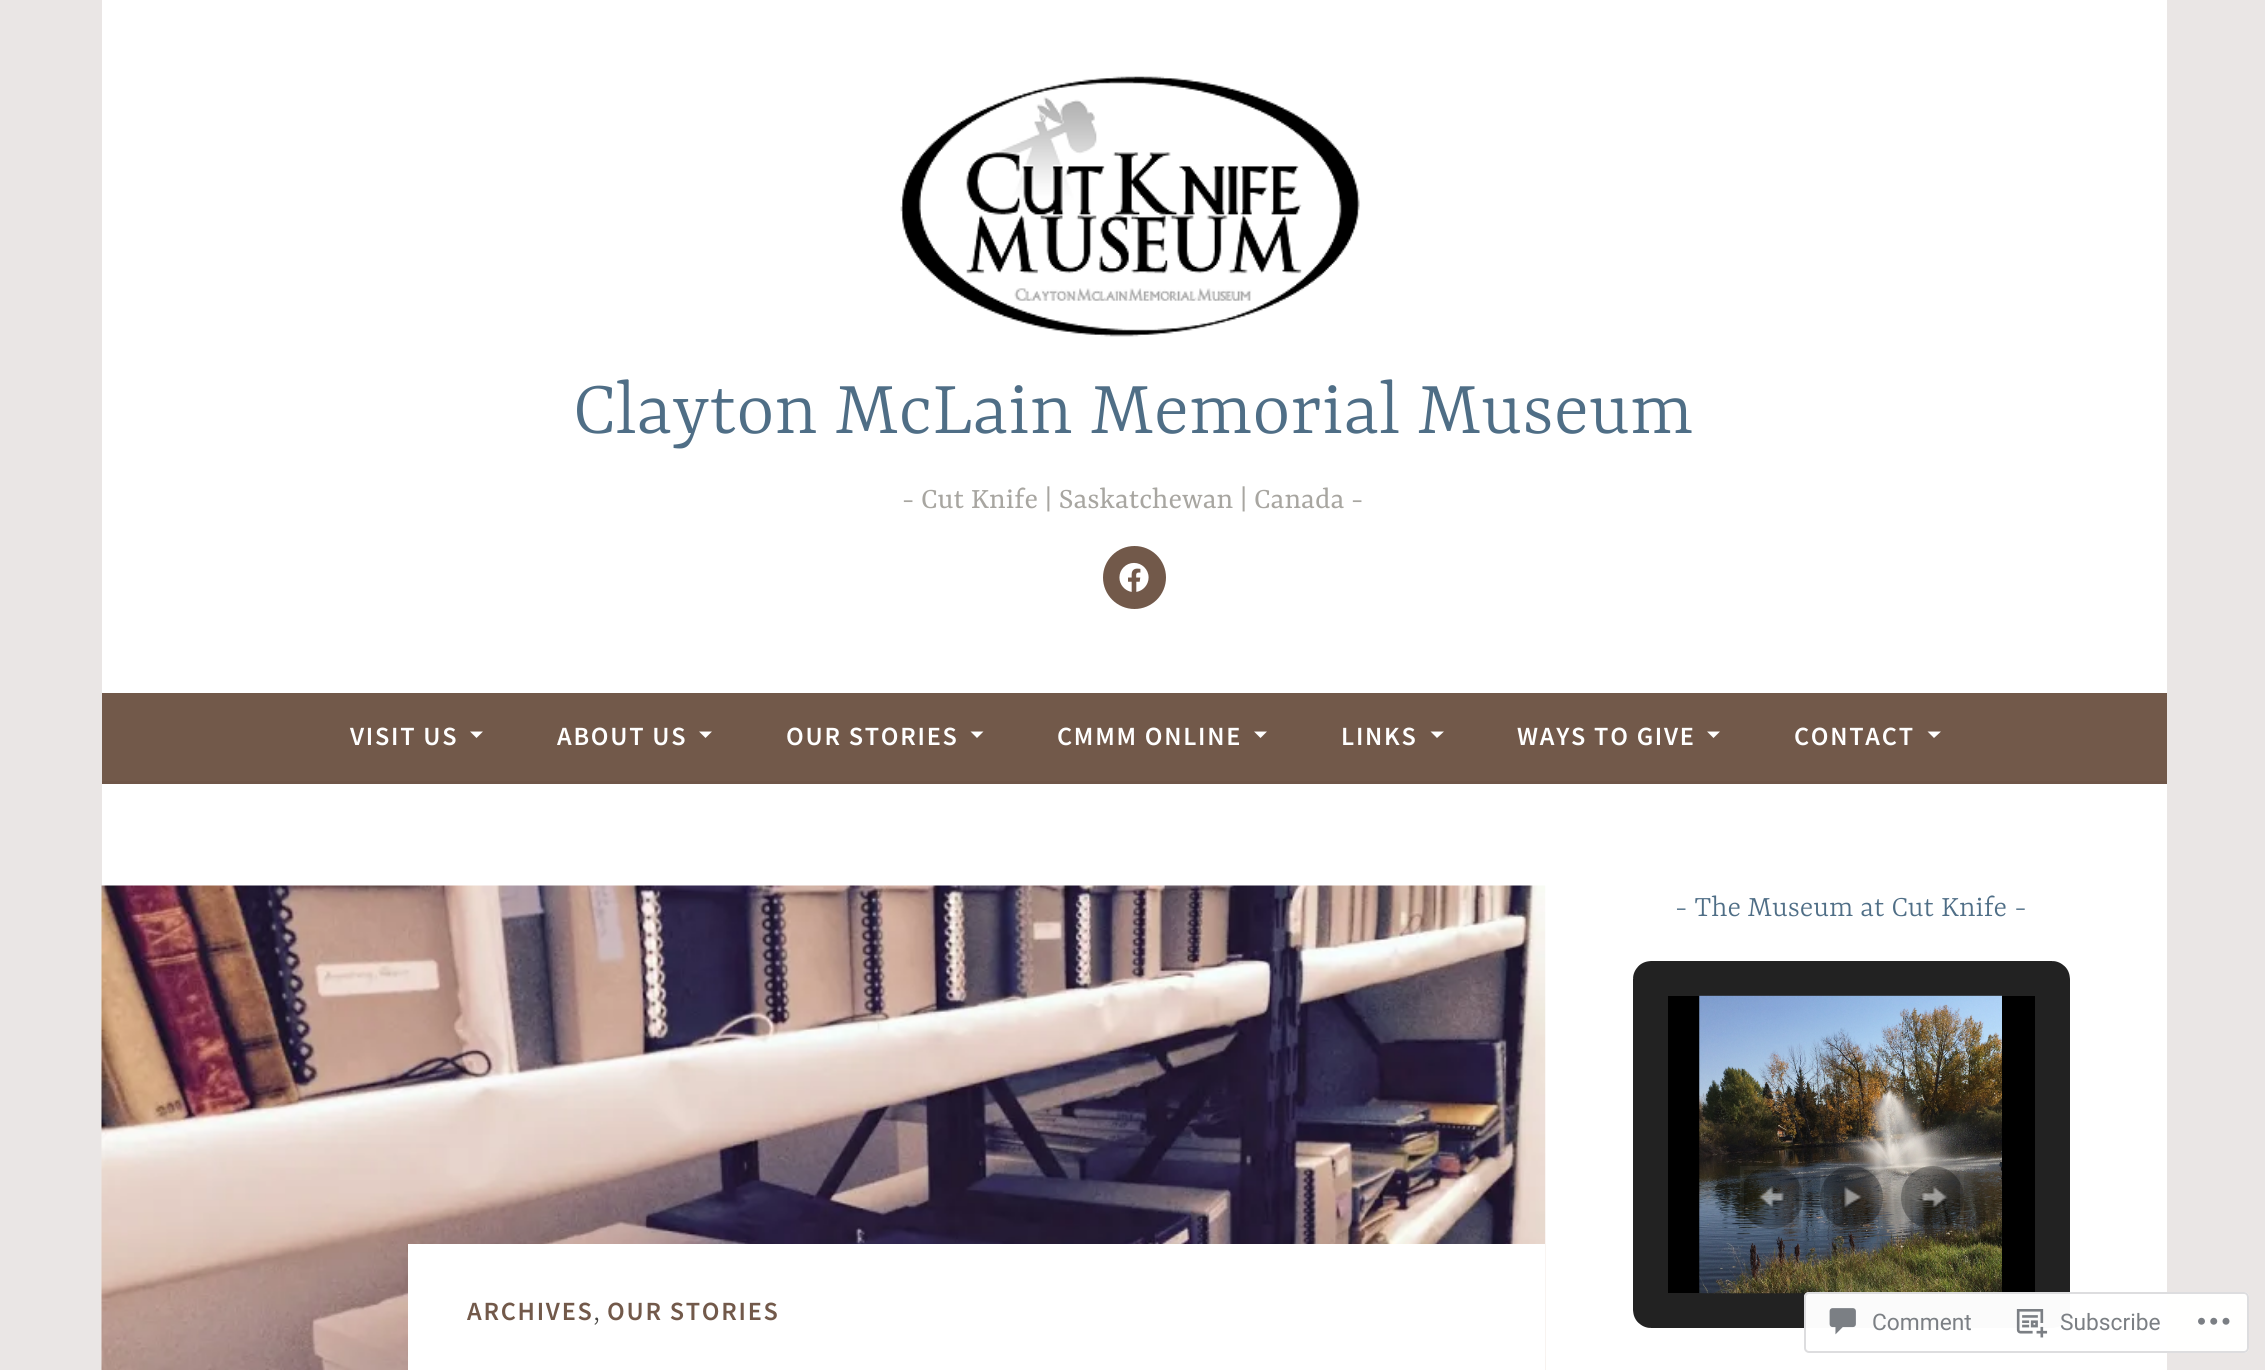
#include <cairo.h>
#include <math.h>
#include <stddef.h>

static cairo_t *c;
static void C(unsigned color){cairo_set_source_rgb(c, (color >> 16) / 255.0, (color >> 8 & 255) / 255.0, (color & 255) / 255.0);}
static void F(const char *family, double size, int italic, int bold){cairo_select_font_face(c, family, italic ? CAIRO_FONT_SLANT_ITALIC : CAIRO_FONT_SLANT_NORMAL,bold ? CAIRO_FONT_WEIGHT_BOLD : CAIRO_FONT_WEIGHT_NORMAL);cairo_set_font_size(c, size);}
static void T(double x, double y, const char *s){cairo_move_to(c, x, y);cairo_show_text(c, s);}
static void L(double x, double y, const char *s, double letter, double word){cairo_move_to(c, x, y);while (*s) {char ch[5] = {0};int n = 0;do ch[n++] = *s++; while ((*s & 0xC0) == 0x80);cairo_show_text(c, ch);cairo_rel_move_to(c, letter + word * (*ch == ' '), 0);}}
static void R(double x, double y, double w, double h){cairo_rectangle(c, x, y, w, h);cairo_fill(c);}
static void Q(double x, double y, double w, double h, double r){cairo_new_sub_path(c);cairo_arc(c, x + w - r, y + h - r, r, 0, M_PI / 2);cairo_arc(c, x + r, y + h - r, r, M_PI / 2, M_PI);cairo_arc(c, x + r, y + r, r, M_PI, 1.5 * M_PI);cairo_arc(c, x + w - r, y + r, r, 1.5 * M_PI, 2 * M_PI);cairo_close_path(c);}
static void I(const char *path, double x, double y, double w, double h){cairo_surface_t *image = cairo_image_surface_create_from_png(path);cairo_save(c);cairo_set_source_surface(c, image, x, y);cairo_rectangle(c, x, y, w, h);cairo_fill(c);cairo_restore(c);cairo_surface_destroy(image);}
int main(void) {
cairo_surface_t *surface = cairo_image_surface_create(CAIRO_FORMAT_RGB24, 2265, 1370);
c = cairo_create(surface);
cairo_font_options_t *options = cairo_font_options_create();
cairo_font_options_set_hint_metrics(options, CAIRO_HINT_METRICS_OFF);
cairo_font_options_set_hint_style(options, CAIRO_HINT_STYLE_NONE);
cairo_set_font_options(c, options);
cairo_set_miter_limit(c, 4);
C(0xeae6e5);
cairo_paint(c);
C(0xffffff);
R(102,0,2065,693);
I("1.png",900,76,460,261);
F("Yrsa Light",82.25,0,0);
C(0x4f6e86);
T(573,433,"Clayton McLain Memorial Museum");
F("Yrsa",31.5,0,0);
C(0xa8a6a1);
T(902,508,"- Cut Knife | Saskatchewan | Canada -");
C(0x72594a);
cairo_new_path(c);
cairo_arc(c,1134.5,577.5,31.5,0,2 * M_PI);
cairo_fill(c);
I("2.png",1119,562,30,30);
R(102,693,2065,88);
C(0x6f5648);
R(102,781,2065,3);
F("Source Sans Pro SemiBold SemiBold",26.25,0,0);
C(0xffffff);
L(350,745,"VISIT US",1.75,0);
cairo_new_path(c);
cairo_move_to(c,470,731.5);
cairo_line_to(c,483,731.5);
cairo_line_to(c,476.5,738);
cairo_close_path(c);
cairo_fill(c);
L(557,745,"ABOUT US",1.75,0);
cairo_new_path(c);
cairo_move_to(c,699,731.5);
cairo_line_to(c,712,731.5);
cairo_line_to(c,705.5,738);
cairo_close_path(c);
cairo_fill(c);
L(786,745,"OUR STORIES",1.75,0);
cairo_new_path(c);
cairo_move_to(c,970.5,731.5);
cairo_line_to(c,983.5,731.5);
cairo_line_to(c,977,738);
cairo_close_path(c);
cairo_fill(c);
L(1057,745,"CMMM ONLINE",1.75,0);
cairo_new_path(c);
cairo_move_to(c,1254,731.5);
cairo_line_to(c,1267,731.5);
cairo_line_to(c,1260.5,738);
cairo_close_path(c);
cairo_fill(c);
L(1341,745,"LINKS",1.75,0);
cairo_new_path(c);
cairo_move_to(c,1430.5,731.5);
cairo_line_to(c,1444,731.5);
cairo_line_to(c,1437,738);
cairo_close_path(c);
cairo_fill(c);
L(1517,745,"WAYS TO GIVE",1.75,0);
cairo_new_path(c);
cairo_move_to(c,1707,731.5);
cairo_line_to(c,1720,731.5);
cairo_line_to(c,1713.5,738);
cairo_close_path(c);
cairo_fill(c);
L(1794,745,"CONTACT",1.75,0);
cairo_new_path(c);
cairo_move_to(c,1927.5,731.5);
cairo_line_to(c,1941,731.5);
cairo_line_to(c,1934,738);
cairo_close_path(c);
cairo_fill(c);
R(102,784,2065,586);
F("Yrsa Light",31.5,0,0);
C(0x4f6e86);
T(1675,916,"- The Museum at Cut Knife -");
Q(1650.5,978.5,402,332,.5);
C(0x222222);
cairo_set_line_width(c,35);
cairo_stroke(c);
C(0x000000);
R(1668,996,367,297);
I("3.png",1699,995,303,299);
cairo_set_source_rgba(c,0,0,0,0.3);
cairo_arc(c,1771.5,1197.5,31.5,0,2 * M_PI);
cairo_fill(c);
I("4.png",1758,1186,28,23);
cairo_rectangle(c,1742,1168,59,59);
cairo_set_source_rgba(c,1,1,1,0.05);
cairo_set_line_width(c,4);
cairo_stroke(c);
cairo_set_source_rgba(c,0,0,0,0.3);
cairo_arc(c,1851.5,1197.5,31.5,0,2 * M_PI);
cairo_fill(c);
I("5.png",1844,1186,19,22);
cairo_rectangle(c,1822,1168,59,59);
cairo_set_source_rgba(c,1,1,1,0.05);
cairo_stroke(c);
cairo_set_source_rgba(c,0,0,0,0.3);
cairo_arc(c,1932.5,1197.5,31.5,0,2 * M_PI);
cairo_fill(c);
I("6.png",1922,1186,27,22);
cairo_rectangle(c,1903,1168,59,59);
cairo_set_source_rgba(c,1,1,1,0.05);
cairo_stroke(c);
I("7.png",101,885,1445,485);
C(0xffffff);
R(408,1244,1137,126);
F("Source Sans Pro SemiBold SemiBold",26.25,0,0);
C(0x72594a);
L(467,1320,"ARCHIVES",1.75,0);
F("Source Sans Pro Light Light",31.5,0,0);
C(0x444340);
T(593,1320,",");
F("Source Sans Pro SemiBold SemiBold",26.25,0,0);
C(0x72594a);
L(607,1320,"OUR STORIES",1.75,0);
cairo_set_source_rgba(c,1,1,1,0.98);
Q(1804,1292,445,61,5);
cairo_fill(c);
Q(1805,1293,443,59,4);
cairo_set_source_rgba(c,0.863,0.863,0.871,0.98);
cairo_set_line_width(c,2);
cairo_stroke(c);
I("8.png",1829,1308,27,27);
F("Roboto",22.75,0,0);
C(0x7b7f84);
T(1872,1330,"Comment");
I("9.png",2016,1309,32,29);
T(2060,1330,"Subscribe");
I("10.png",2198,1317,32,8);
cairo_surface_write_to_png(surface, "o.png");
cairo_font_options_destroy(options);
cairo_destroy(c);
cairo_surface_destroy(surface);
return 0;
}
